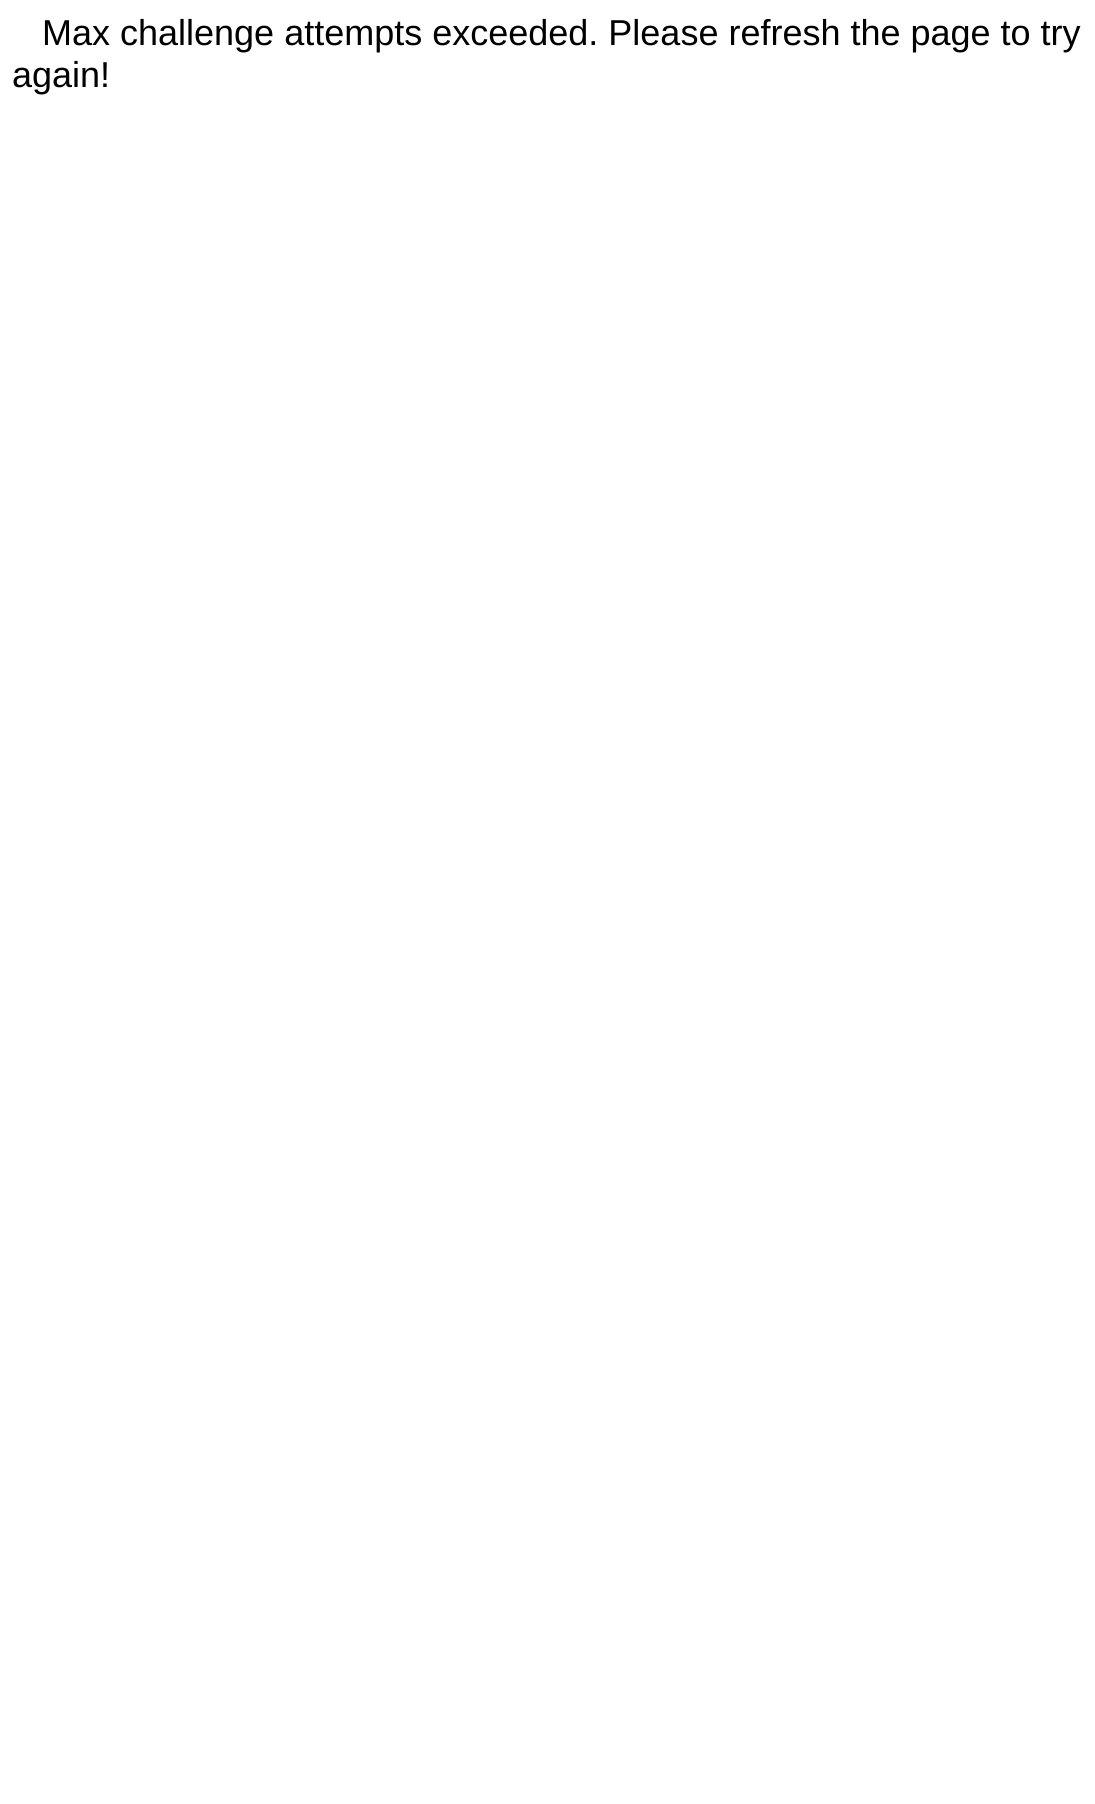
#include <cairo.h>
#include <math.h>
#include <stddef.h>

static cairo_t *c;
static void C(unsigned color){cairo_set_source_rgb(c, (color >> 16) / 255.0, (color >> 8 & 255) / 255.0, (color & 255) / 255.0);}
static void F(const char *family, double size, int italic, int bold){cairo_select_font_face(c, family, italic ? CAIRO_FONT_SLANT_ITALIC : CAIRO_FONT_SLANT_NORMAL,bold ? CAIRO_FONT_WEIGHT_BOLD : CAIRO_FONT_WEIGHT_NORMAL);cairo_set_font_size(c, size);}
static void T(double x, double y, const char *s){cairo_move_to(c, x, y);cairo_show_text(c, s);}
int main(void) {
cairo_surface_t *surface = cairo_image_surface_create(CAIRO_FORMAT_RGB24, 1095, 1804);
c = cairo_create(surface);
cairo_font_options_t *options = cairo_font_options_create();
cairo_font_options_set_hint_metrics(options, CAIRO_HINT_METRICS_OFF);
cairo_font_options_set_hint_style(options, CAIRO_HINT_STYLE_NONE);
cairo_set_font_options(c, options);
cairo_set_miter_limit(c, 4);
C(0xffffff);
cairo_paint(c);
F("Liberation Sans",36,0,0);
C(0x000000);
T(42,45,"Max challenge attempts exceeded. Please refresh the page to try");
T(12,87,"again!");
cairo_surface_write_to_png(surface, "o.png");
cairo_font_options_destroy(options);
cairo_destroy(c);
cairo_surface_destroy(surface);
return 0;
}
